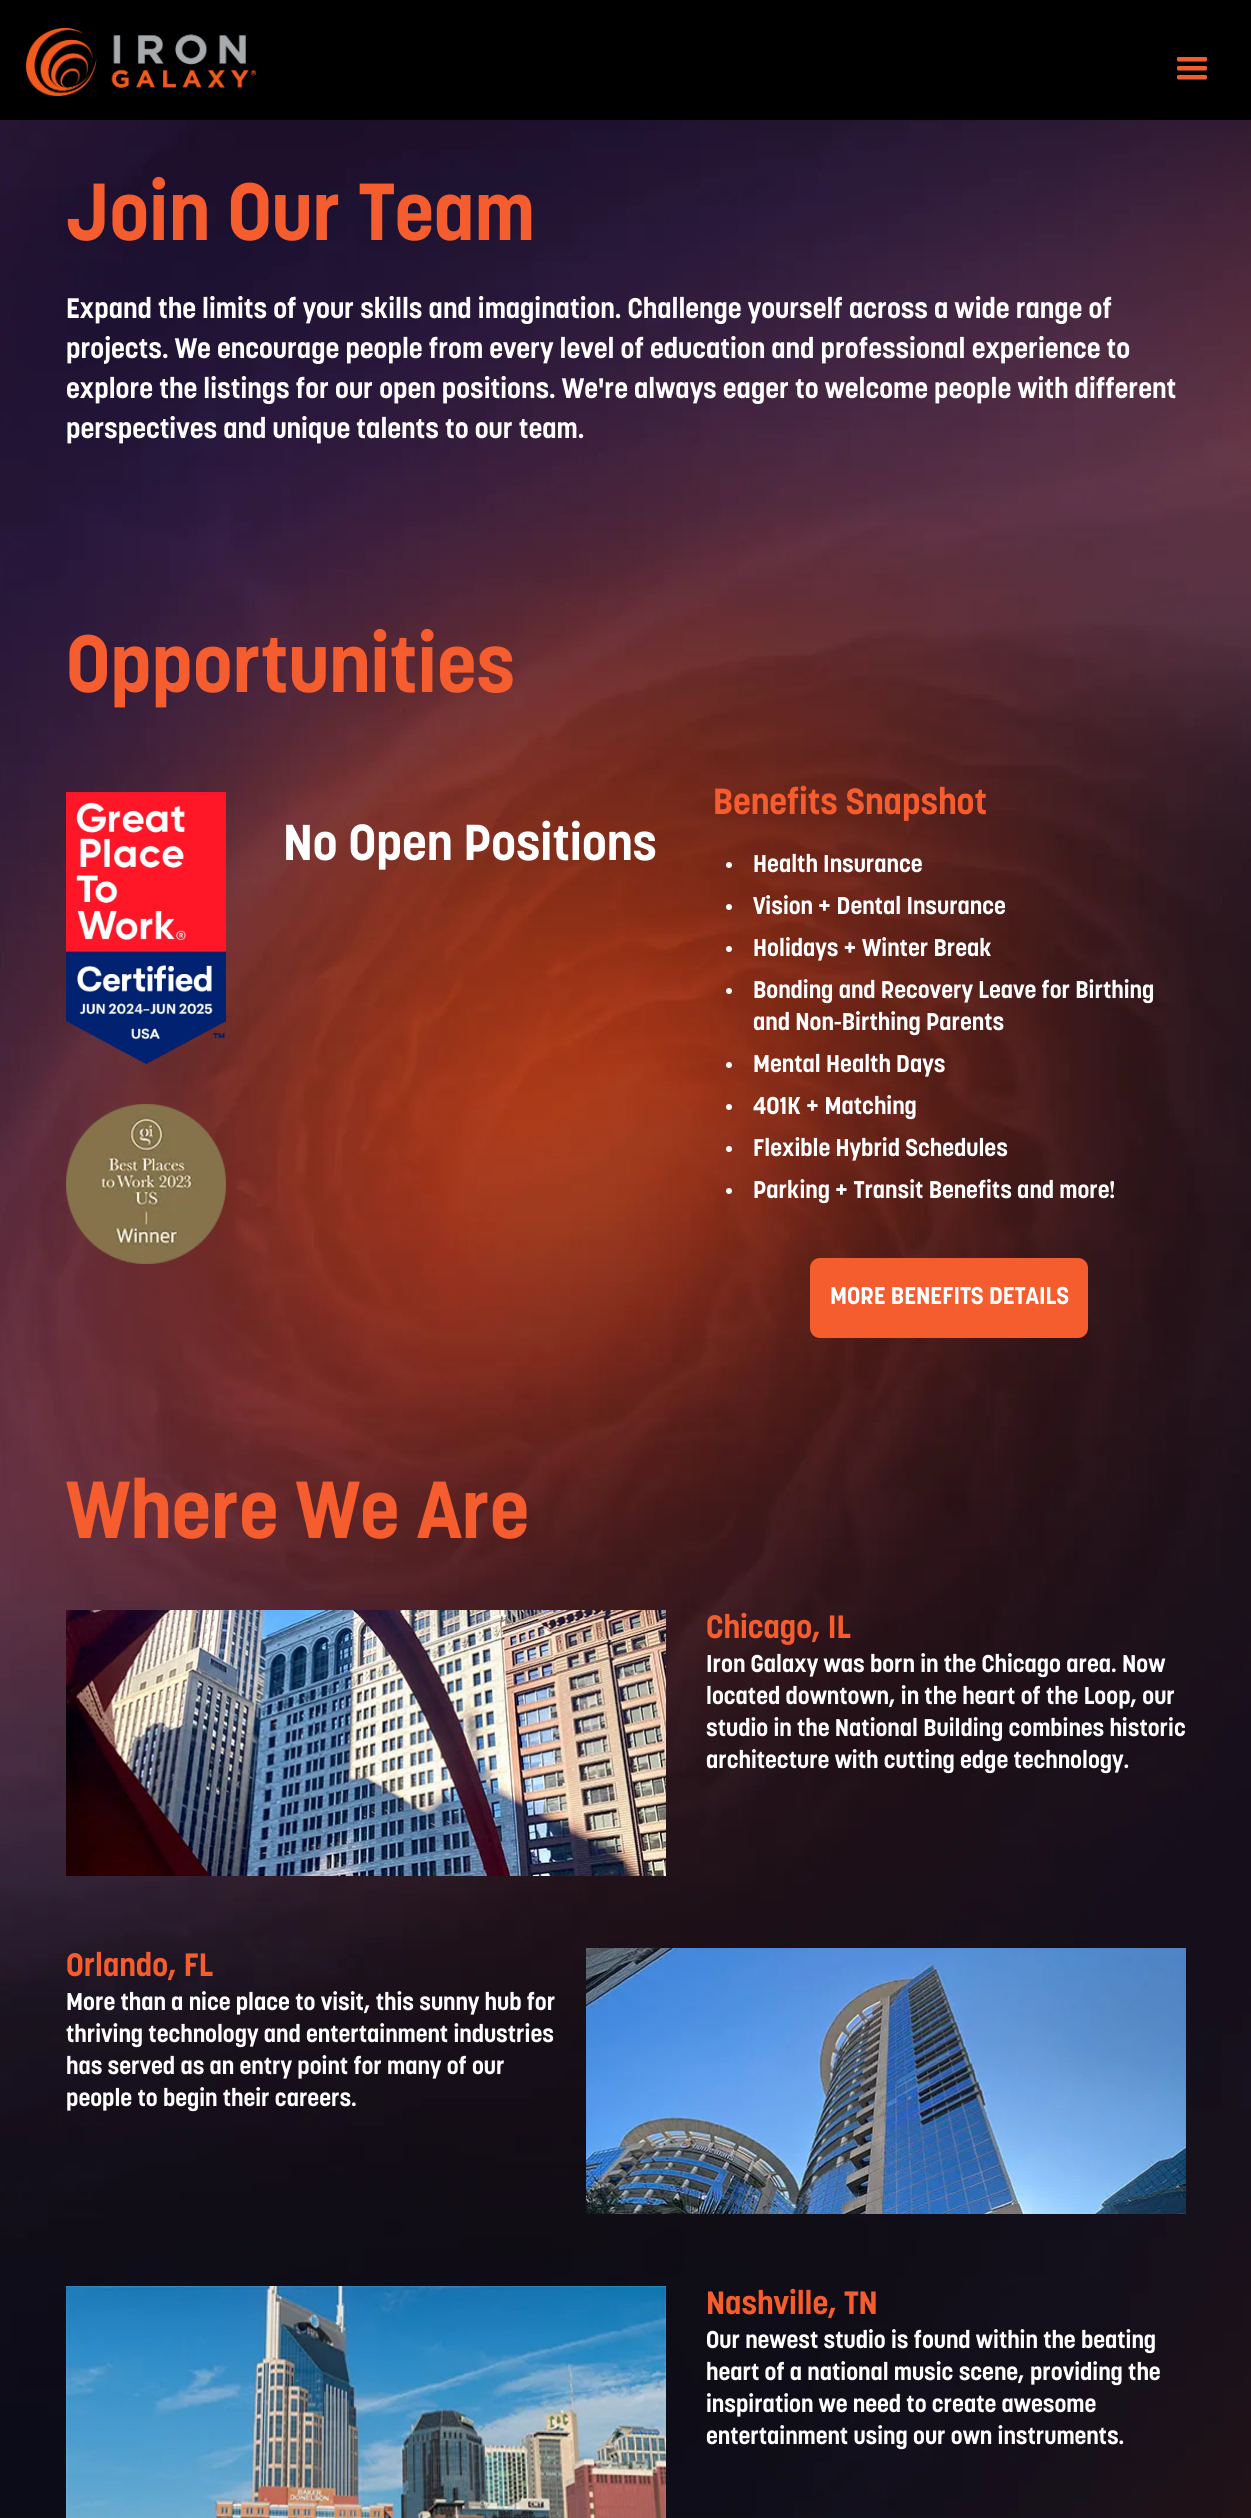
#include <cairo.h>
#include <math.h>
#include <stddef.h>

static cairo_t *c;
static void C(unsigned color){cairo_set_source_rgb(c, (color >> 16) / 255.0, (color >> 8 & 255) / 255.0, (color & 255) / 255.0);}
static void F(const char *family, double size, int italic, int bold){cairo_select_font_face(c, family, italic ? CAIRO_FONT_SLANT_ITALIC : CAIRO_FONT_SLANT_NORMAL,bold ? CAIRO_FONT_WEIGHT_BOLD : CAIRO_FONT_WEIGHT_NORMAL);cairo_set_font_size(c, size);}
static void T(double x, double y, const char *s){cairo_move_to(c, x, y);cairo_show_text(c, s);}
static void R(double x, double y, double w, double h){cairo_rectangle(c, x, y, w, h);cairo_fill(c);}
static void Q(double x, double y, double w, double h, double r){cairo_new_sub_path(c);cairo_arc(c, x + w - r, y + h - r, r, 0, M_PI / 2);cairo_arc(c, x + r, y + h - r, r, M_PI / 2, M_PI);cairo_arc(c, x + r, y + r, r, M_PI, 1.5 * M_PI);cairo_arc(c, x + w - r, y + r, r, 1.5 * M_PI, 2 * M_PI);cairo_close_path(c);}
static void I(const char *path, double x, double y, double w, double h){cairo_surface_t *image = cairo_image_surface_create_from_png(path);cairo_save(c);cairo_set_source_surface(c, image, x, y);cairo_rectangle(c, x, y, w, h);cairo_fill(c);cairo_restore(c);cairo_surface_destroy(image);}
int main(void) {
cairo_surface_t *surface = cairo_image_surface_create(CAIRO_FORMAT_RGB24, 1251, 2518);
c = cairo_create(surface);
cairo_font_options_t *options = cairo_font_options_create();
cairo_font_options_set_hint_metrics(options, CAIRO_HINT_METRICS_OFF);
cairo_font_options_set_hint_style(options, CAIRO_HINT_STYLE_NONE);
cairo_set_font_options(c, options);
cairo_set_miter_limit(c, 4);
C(0xffffff);
cairo_paint(c);
I("1.png",0,120,1251,2398);
C(0x000000);
R(0,0,1251,120);
I("2.png",26,28,230,68);
I("3.png",1177,57,30,23);
F("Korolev",80,0,1);
C(0xf55c2e);
T(66,240,"Join Our Team");
F("Korolev",28,0,1);
C(0xffffff);
T(66,318,"Expand the limits of your skills and imagination. Challenge yourself across a wide range of");
T(66,358,"projects. We encourage people from every level of education and professional experience to");
T(66,398,"explore the listings for our open positions. We're always eager to welcome people with different");
T(66,438,"perspectives and unique talents to our team.");
F("Korolev",80,0,1);
C(0xf55c2e);
T(66,692,"Opportunities");
I("4.png",66,792,160,272);
I("5.png",66,1104,160,160);
F("Korolev",50,0,1);
C(0xffffff);
T(283,860,"No Open Positions");
F("Korolev",36,0,1);
C(0xf55c2e);
T(713,814,"Benefits Snapshot");
C(0xffffff);
cairo_new_path(c);
cairo_arc(c,729,865,3,0,2 * M_PI);
cairo_fill(c);
F("Korolev",24,0,1);
T(753,872,"Health Insurance");
cairo_new_path(c);
cairo_arc(c,729,907,3,0,2 * M_PI);
cairo_fill(c);
T(753,914,"Vision + Dental Insurance");
cairo_new_path(c);
cairo_arc(c,729,949,3,0,2 * M_PI);
cairo_fill(c);
T(753,956,"Holidays + Winter Break");
cairo_new_path(c);
cairo_arc(c,729,991,3,0,2 * M_PI);
cairo_fill(c);
T(753,998,"Bonding and Recovery Leave for Birthing");
T(753,1030,"and Non-Birthing Parents");
cairo_new_path(c);
cairo_arc(c,729,1065,3,0,2 * M_PI);
cairo_fill(c);
T(753,1072,"Mental Health Days");
cairo_new_path(c);
cairo_arc(c,729,1107,3,0,2 * M_PI);
cairo_fill(c);
T(753,1114,"401K + Matching");
cairo_new_path(c);
cairo_arc(c,729,1149,3,0,2 * M_PI);
cairo_fill(c);
T(753,1156,"Flexible Hybrid Schedules");
cairo_new_path(c);
cairo_arc(c,729,1191,3,0,2 * M_PI);
cairo_fill(c);
T(753,1198,"Parking + Transit Benefits and more!");
C(0xf55c2e);
Q(810,1258,278,80,10);
cairo_fill(c);
C(0xffffff);
T(830,1304,"MORE BENEFITS DETAILS");
F("Korolev",80,0,1);
C(0xf55c2e);
T(66,1538,"Where We Are");
I("6.png",66,1610,600,266);
F("Korolev",32,0,1);
T(706,1638,"Chicago, IL");
F("Korolev",24,0,1);
C(0xffffff);
T(706,1672,"Iron Galaxy was born in the Chicago area. Now");
T(706,1704,"located downtown, in the heart of the Loop, our");
T(706,1736,"studio in the National Building combines historic");
T(706,1768,"architecture with cutting edge technology.");
F("Korolev",32,0,1);
C(0xf55c2e);
T(66,1976,"Orlando, FL");
F("Korolev",24,0,1);
C(0xffffff);
T(66,2010,"More than a nice place to visit, this sunny hub for");
T(66,2042,"thriving technology and entertainment industries");
T(66,2074,"has served as an entry point for many of our");
T(66,2106,"people to begin their careers.");
I("7.png",586,1948,600,266);
I("9.png",0,2517,1251,1);
I("8.png",66,2286,600,232);
F("Korolev",32,0,1);
C(0xf55c2e);
T(706,2314,"Nashville, TN");
F("Korolev",24,0,1);
C(0xffffff);
T(706,2348,"Our newest studio is found within the beating");
T(706,2380,"heart of a national music scene, providing the");
T(706,2412,"inspiration we need to create awesome");
T(706,2444,"entertainment using our own instruments.");
cairo_surface_write_to_png(surface, "o.png");
cairo_font_options_destroy(options);
cairo_destroy(c);
cairo_surface_destroy(surface);
return 0;
}
